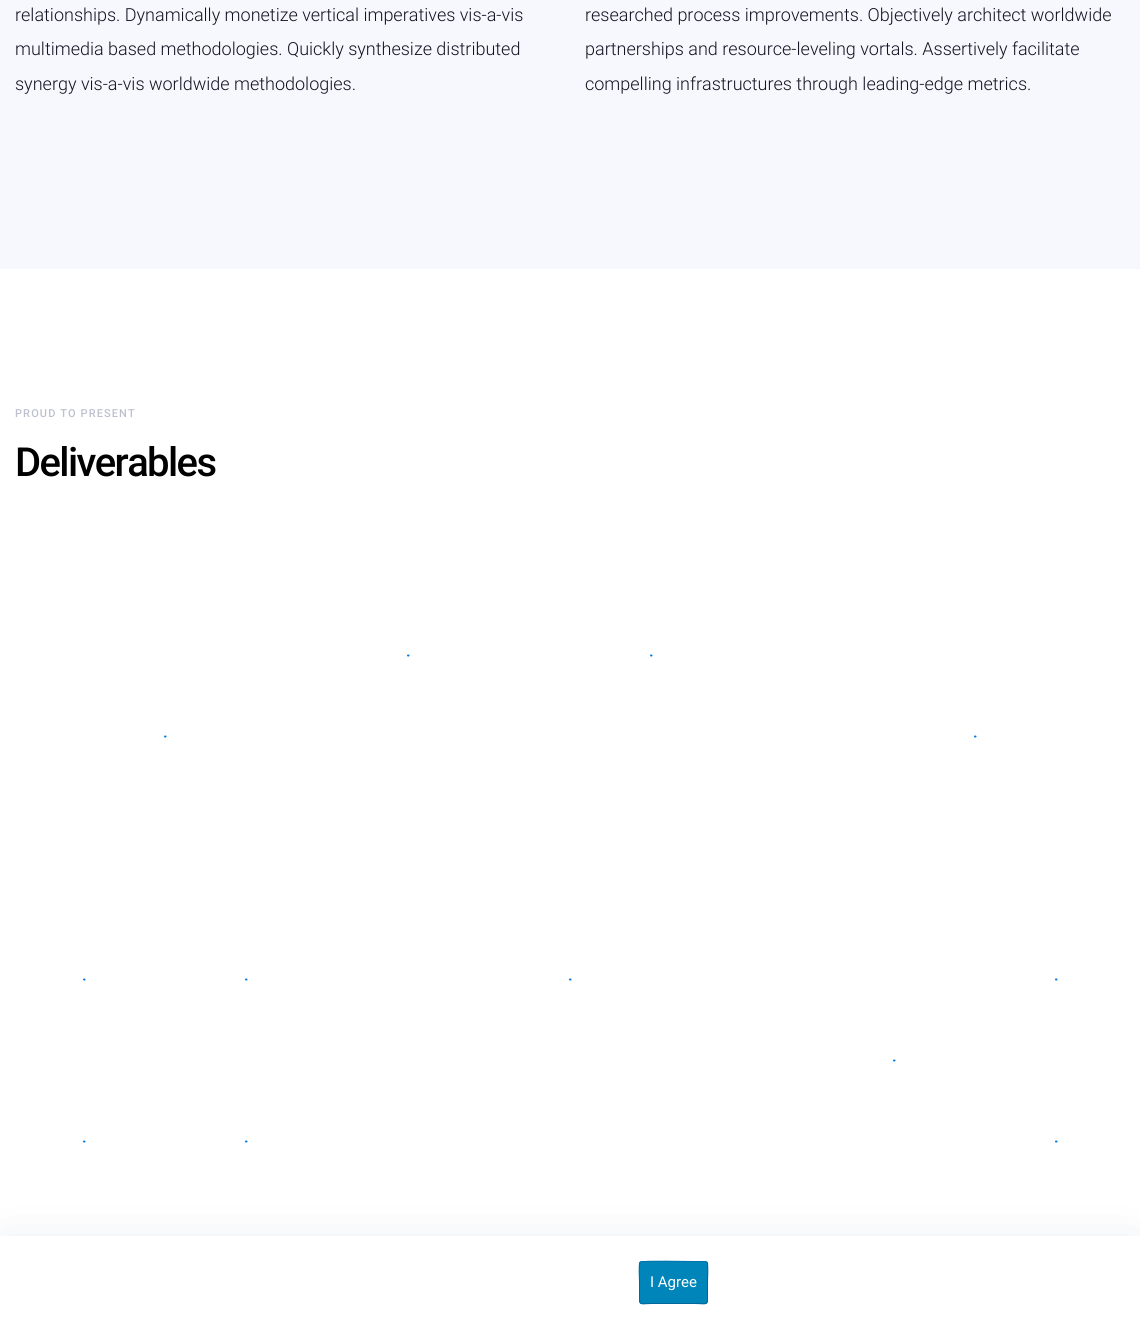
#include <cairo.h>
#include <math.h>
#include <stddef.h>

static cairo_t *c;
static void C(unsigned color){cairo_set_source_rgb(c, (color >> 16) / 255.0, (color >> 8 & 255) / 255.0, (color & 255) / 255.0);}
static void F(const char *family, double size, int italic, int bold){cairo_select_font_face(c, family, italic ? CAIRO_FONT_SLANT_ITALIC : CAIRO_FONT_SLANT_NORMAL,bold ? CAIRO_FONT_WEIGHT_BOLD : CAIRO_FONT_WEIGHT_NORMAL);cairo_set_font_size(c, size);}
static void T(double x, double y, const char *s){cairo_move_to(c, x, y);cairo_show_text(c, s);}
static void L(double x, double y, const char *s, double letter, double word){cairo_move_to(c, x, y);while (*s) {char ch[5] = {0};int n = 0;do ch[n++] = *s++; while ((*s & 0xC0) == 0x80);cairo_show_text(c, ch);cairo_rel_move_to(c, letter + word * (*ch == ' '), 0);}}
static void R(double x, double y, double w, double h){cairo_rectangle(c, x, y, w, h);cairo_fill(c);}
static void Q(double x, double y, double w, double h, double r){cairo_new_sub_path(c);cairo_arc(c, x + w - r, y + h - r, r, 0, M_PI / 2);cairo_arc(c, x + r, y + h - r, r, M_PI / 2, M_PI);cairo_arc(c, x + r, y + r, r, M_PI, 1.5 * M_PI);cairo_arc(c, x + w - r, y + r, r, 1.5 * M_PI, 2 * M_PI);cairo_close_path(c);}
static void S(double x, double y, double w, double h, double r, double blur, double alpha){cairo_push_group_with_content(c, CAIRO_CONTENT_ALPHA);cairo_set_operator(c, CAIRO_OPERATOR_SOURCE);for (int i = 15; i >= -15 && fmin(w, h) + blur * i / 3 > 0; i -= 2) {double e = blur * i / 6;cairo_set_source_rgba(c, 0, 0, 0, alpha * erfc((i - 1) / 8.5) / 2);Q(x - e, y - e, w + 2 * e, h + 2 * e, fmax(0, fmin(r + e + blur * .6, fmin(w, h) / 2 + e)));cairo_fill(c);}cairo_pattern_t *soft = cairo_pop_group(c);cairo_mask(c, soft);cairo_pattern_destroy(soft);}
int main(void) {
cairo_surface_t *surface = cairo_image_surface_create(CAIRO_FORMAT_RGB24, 1140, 1329);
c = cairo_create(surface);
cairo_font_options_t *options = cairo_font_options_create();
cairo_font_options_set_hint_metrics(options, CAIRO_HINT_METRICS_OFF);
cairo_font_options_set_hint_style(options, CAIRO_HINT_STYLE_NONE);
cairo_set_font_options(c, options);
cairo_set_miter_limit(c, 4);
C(0xffffff);
cairo_paint(c);
C(0xf7f8fd);
R(0,0,1140,269);
F("Roboto Light",18,0,0);
C(0x151221);
T(15,21,"relationships. Dynamically monetize vertical imperatives vis-a-vis");
T(15,55,"multimedia based methodologies. Quickly synthesize distributed");
T(15,90,"synergy vis-a-vis worldwide methodologies.");
T(585,21,"researched process improvements. Objectively architect worldwide");
T(585,55,"partnerships and resource-leveling vortals. Assertively facilitate");
T(585,90,"compelling infrastructures through leading-edge metrics.");
F("Roboto Medium",11,0,0);
C(0xbbc2ce);
L(15,417,"PROUD TO PRESENT",1.1,0);
F("Roboto Medium",40,0,0);
C(0x000000);
L(15,476,"Deliverables",-1.6,0);
cairo_new_path(c);
cairo_move_to(c,408,655.5);
cairo_line_to(c,408.5,655.5);
C(0x007ade);
cairo_set_line_cap(c,CAIRO_LINE_CAP_ROUND);
cairo_stroke(c);
cairo_new_path(c);
cairo_move_to(c,651,655.5);
cairo_line_to(c,651.5,655.5);
cairo_stroke(c);
cairo_new_path(c);
cairo_move_to(c,165,736.5);
cairo_line_to(c,165.5,736.5);
cairo_stroke(c);
cairo_new_path(c);
cairo_move_to(c,975,736.5);
cairo_line_to(c,975.5,736.5);
cairo_stroke(c);
cairo_new_path(c);
cairo_move_to(c,84,979.5);
cairo_line_to(c,84.5,979.5);
cairo_stroke(c);
cairo_new_path(c);
cairo_move_to(c,246,979.5);
cairo_line_to(c,246.5,979.5);
cairo_stroke(c);
cairo_new_path(c);
cairo_move_to(c,570,979.5);
cairo_line_to(c,570.5,979.5);
cairo_stroke(c);
cairo_new_path(c);
cairo_move_to(c,1056,979.5);
cairo_line_to(c,1056.5,979.5);
cairo_stroke(c);
cairo_new_path(c);
cairo_move_to(c,894,1060.5);
cairo_line_to(c,894.5,1060.5);
cairo_stroke(c);
cairo_new_path(c);
cairo_move_to(c,84,1141.5);
cairo_line_to(c,84.5,1141.5);
cairo_stroke(c);
cairo_new_path(c);
cairo_move_to(c,246,1141.5);
cairo_line_to(c,246.5,1141.5);
cairo_stroke(c);
cairo_new_path(c);
cairo_move_to(c,1056,1141.5);
cairo_line_to(c,1056.5,1141.5);
cairo_stroke(c);
C(0x091f43);
S(5,1256,1130,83,0,27.5,.15);
C(0xffffff);
R(0,1236,1140,93);
C(0x0085ba);
Q(639,1261,69,43,3);
cairo_fill(c);
cairo_new_path(c);
cairo_move_to(c,640,1262);
cairo_line_to(c,640.5,1262);
cairo_curve_to(c,642.5,1260.5,688.5,1261.5,694.5,1261.5);
cairo_line_to(c,705,1261.5);
cairo_line_to(c,707,1262);
C(0x0073aa);
cairo_set_line_width(c,1);
cairo_set_line_cap(c,CAIRO_LINE_CAP_BUTT);
cairo_stroke(c);
cairo_new_path(c);
cairo_move_to(c,707,1262);
cairo_curve_to(c,708.5,1264,707.5,1279.5,707.5,1282.5);
cairo_line_to(c,707.5,1295);
cairo_curve_to(c,707.5,1306.5,707.5,1303.5,694.5,1303.5);
cairo_line_to(c,652.5,1303.5);
cairo_curve_to(c,639.5,1303.5,639.5,1306.5,639.5,1295);
cairo_line_to(c,639.5,1282.5);
cairo_curve_to(c,639.5,1279.5,638.5,1264,640,1262);
C(0x006799);
cairo_stroke(c);
F("Roboto",15,0,0);
C(0xffffff);
T(650,1287,"I Agree");
cairo_surface_write_to_png(surface, "o.png");
cairo_font_options_destroy(options);
cairo_destroy(c);
cairo_surface_destroy(surface);
return 0;
}
